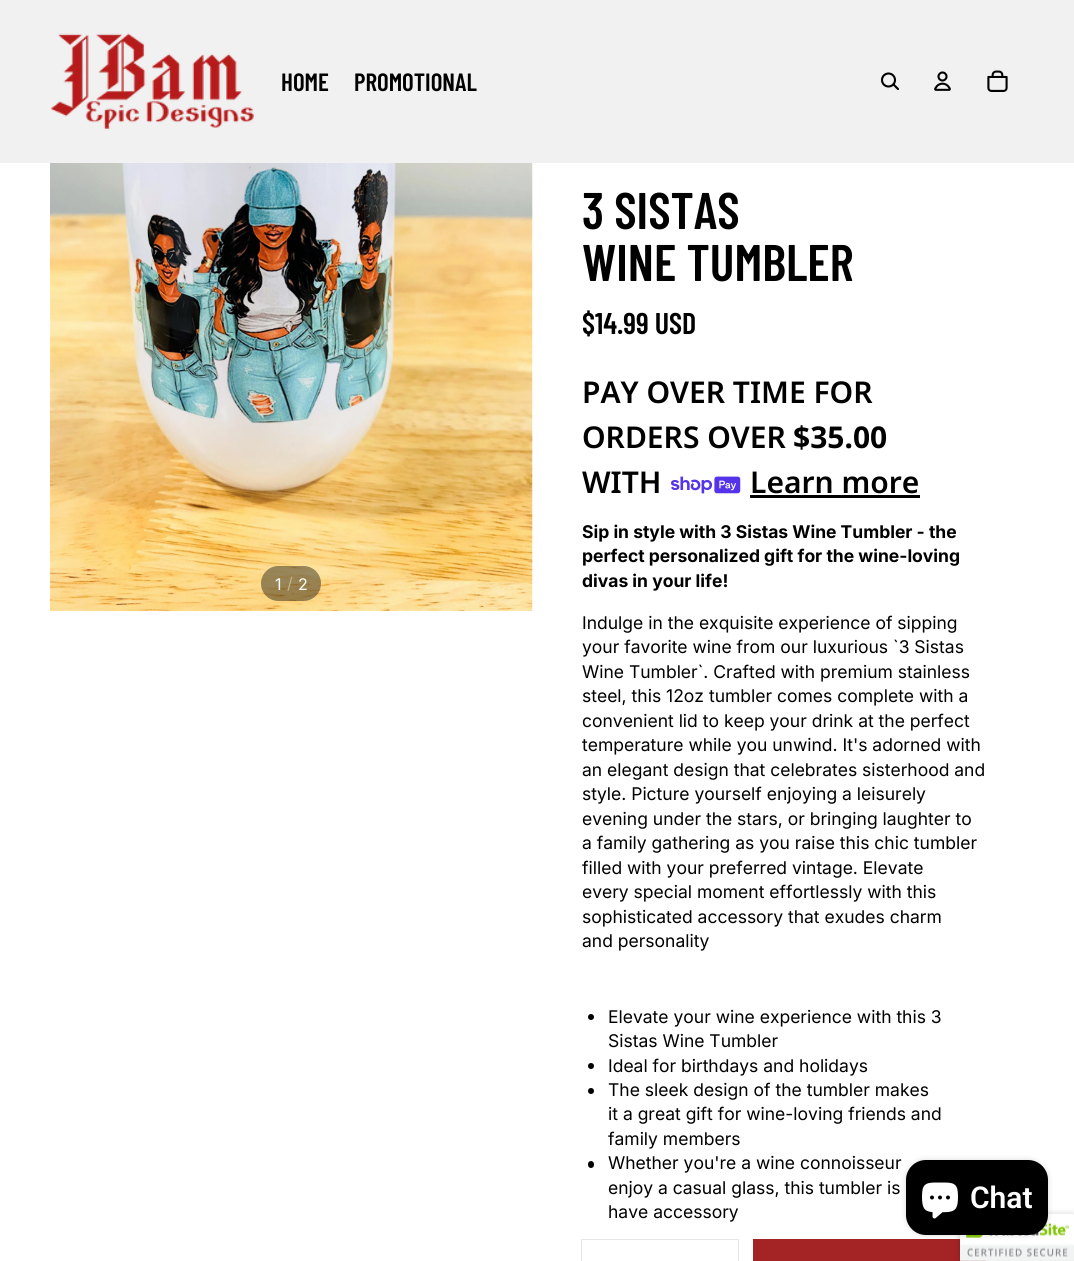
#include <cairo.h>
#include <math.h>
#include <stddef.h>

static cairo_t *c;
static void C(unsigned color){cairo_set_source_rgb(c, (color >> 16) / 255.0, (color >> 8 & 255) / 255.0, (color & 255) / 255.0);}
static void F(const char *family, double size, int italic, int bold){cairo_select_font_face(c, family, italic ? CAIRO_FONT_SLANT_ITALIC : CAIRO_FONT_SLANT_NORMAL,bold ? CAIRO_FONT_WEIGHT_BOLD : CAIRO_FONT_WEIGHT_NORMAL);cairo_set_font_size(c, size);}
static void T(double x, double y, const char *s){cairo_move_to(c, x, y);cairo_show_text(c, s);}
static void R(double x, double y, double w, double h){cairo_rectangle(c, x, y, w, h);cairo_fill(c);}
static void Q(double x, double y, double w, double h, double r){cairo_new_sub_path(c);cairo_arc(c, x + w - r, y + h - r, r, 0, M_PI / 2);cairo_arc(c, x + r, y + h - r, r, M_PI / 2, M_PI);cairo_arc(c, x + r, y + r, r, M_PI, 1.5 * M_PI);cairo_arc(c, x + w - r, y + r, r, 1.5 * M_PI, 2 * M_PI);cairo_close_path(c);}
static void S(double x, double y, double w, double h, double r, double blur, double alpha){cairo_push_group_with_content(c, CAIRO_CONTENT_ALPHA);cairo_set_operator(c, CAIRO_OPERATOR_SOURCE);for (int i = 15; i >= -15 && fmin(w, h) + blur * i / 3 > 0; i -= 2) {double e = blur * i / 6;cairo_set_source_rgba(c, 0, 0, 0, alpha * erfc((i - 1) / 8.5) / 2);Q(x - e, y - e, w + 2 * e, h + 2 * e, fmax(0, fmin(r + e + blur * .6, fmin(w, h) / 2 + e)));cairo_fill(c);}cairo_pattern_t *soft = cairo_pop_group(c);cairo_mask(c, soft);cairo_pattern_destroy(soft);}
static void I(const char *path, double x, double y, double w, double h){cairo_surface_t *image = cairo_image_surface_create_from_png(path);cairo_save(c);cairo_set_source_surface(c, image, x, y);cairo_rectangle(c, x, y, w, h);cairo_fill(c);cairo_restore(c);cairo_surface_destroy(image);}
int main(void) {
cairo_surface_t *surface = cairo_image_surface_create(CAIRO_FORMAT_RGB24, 1074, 1261);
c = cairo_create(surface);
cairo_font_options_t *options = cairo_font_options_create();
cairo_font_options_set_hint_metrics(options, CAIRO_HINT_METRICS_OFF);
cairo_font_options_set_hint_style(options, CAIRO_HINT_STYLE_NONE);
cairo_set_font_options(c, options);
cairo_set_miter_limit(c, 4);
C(0xffffff);
cairo_paint(c);
C(0xf1f1f1);
R(0,0,1074,163);
I("1.png",51,33,203,96);
F("Barlow Condensed SemiBold",25,0,0);
C(0x000000);
T(281,91,"HOME");
T(354,91,"PROMOTIONAL");
cairo_new_path(c);
cairo_arc(c,888.5,80,6.5,0,2 * M_PI);
cairo_set_line_width(c,2.1);
cairo_stroke(c);
cairo_new_path(c);
cairo_move_to(c,893.5,84.5);
cairo_line_to(c,898,89);
cairo_set_line_cap(c,CAIRO_LINE_CAP_ROUND);
cairo_set_line_join(c,CAIRO_LINE_JOIN_ROUND);
cairo_stroke(c);
I("2.png",934,71,17,20);
I("3.png",987,70,21,22);
I("4.png",50,163,483,449);
cairo_set_source_rgba(c,0,0,0,0.4);
Q(261,566,60,35,17.5);
cairo_fill(c);
F("Inter",16,0,0);
C(0xffffff);
T(275,590,"1");
C(0xc1b394);
T(287,589,"/");
C(0xffffff);
T(298,590,"2");
F("Barlow Condensed SemiBold",51.5,0,0);
C(0x000000);
T(582,229,"3 SISTAS");
T(582,281,"WINE TUMBLER");
F("Barlow Condensed SemiBold",30,0,0);
T(582,334,"$14.99 USD");
F("Noto Sans SemiBold",30,0,0);
T(582,403,"PAY OVER TIME FOR");
T(582,448,"ORDERS OVER");
F("Noto Sans",30,0,1);
T(793,448,"$35.00");
F("Noto Sans SemiBold",30,0,0);
T(582,493,"WITH");
I("5.png",671,476,70,18);
T(750,493,"Learn more");
R(750,495,170,3);
F("Inter",17.5,0,1);
T(582,538,"Sip in style with 3 Sistas Wine Tumbler - the");
T(582,562,"perfect personalized gift for the wine-loving");
T(582,587,"divas in your life!");
F("Inter",17.5,0,0);
T(582,629,"Indulge in the exquisite experience of sipping");
T(582,653,"your favorite wine from our luxurious `3 Sistas");
T(582,678,"Wine Tumbler`. Crafted with premium stainless");
T(582,702,"steel, this 12oz tumbler comes complete with a");
T(582,727,"convenient lid to keep your drink at the perfect");
T(582,751,"temperature while you unwind. It's adorned with");
T(582,776,"an elegant design that celebrates sisterhood and");
T(582,800,"style. Picture yourself enjoying a leisurely");
T(582,825,"evening under the stars, or bringing laughter to");
T(582,849,"a family gathering as you raise this chic tumbler");
T(582,874,"filled with your preferred vintage. Elevate");
T(582,898,"every special moment effortlessly with this");
T(582,923,"sophisticated accessory that exudes charm");
T(582,947,"and personality");
cairo_new_path(c);
cairo_arc(c,591,1017,3,0,2 * M_PI);
cairo_fill(c);
T(608,1023,"Elevate your wine experience with this 3");
T(608,1047,"Sistas Wine Tumbler");
cairo_new_path(c);
cairo_arc(c,591,1066,3,0,2 * M_PI);
cairo_fill(c);
T(608,1072,"Ideal for birthdays and holidays");
cairo_new_path(c);
cairo_arc(c,591,1091,3,0,2 * M_PI);
cairo_fill(c);
T(608,1096,"The sleek design of the tumbler makes");
T(608,1120,"it a great gift for wine-loving friends and");
T(608,1145,"family members");
Q(588,1161,6,7,3);
cairo_fill(c);
T(608,1169,"Whether you're a wine connoisseur");
T(608,1194,"enjoy a casual glass, this tumbler is");
T(608,1218,"have accessory");
cairo_rectangle(c,581.5,1239.5,157,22);
C(0xe6e6e6);
cairo_set_line_width(c,1);
cairo_set_line_cap(c,CAIRO_LINE_CAP_BUTT);
cairo_set_line_join(c,CAIRO_LINE_JOIN_MITER);
cairo_stroke(c);
C(0xa42325);
R(753,1239,233,22);
C(0x000000);
S(960,1214,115,47,2.5,3,.2);
I("7.png",960,1213,114,48);
S(906,1160,142,75,20,3,.15);
C(0x000000);
Q(906,1160,142,75,20);
cairo_fill(c);
I("6.png",922,1182,36,37);
F("Roboto SemiBold",30,0,0);
C(0xffffff);
T(970,1208,"Chat");
cairo_surface_write_to_png(surface, "o.png");
cairo_font_options_destroy(options);
cairo_destroy(c);
cairo_surface_destroy(surface);
return 0;
}
